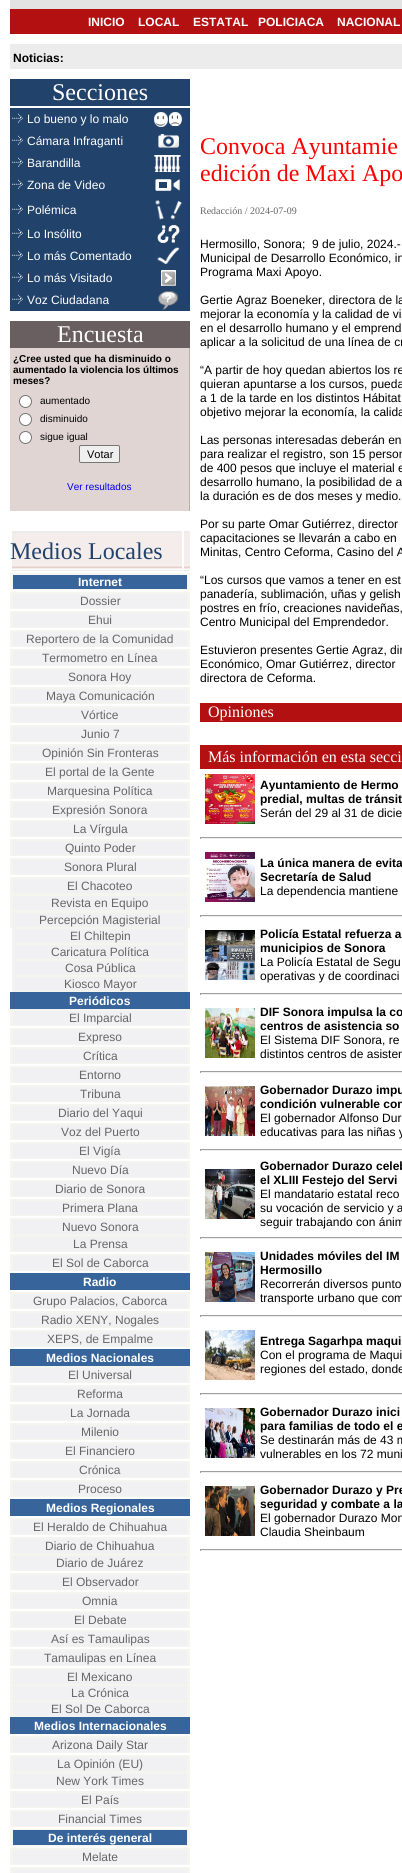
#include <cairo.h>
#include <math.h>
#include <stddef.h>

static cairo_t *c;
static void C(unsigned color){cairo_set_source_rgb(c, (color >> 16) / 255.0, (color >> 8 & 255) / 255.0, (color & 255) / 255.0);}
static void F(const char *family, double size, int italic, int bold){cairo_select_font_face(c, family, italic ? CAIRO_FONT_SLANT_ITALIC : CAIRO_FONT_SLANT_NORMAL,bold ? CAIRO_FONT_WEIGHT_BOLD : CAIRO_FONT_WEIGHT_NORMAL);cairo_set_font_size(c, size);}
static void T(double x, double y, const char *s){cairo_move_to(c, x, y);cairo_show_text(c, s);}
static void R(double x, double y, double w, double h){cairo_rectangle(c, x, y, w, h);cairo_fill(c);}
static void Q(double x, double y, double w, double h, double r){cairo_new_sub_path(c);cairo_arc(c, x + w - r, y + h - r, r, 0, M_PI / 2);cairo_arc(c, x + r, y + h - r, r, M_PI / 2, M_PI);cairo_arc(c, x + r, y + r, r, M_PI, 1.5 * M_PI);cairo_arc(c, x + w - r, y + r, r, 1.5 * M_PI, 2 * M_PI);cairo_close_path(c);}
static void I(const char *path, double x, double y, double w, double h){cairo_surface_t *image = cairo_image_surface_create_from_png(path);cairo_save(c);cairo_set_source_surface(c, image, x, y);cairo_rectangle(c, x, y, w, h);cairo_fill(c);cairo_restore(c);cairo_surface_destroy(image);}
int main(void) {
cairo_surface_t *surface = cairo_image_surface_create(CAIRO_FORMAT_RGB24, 402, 1873);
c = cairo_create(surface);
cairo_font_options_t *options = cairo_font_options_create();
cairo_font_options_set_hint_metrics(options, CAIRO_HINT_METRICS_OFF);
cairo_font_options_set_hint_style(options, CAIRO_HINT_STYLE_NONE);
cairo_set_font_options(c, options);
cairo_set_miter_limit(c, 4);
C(0xffffff);
cairo_paint(c);
C(0xe3e3e3);
R(10,0,392,9);
C(0xb31011);
R(10,9,392,25);
F("Liberation Sans",12,0,1);
C(0xffffff);
T(88,26,"INICIO");
T(138,26,"LOCAL");
T(193,26,"ESTATAL");
T(258,26,"POLICIACA");
T(337,26,"NACIONAL");
C(0xececec);
R(10,44,392,25);
C(0x000000);
T(13,62,"Noticias:");
C(0x21426b);
R(10,79,180,27);
F("Liberation Serif",24,0,0);
C(0xffffff);
T(52,100,"Secciones");
C(0x21426b);
R(10,108,180,22);
I("1.png",12,113,11,10);
F("Liberation Sans",12,0,0);
C(0xffffff);
T(27,123,"Lo bueno y lo malo");
I("2.png",154,112,28,15);
C(0x21426b);
R(10,130,180,22);
I("1.png",12,135,11,10);
C(0xffffff);
T(27,145,"Cámara Infraganti");
I("3.png",158,134,21,14);
C(0x21426b);
R(10,152,180,22);
I("1.png",12,157,11,10);
C(0xffffff);
T(27,167,"Barandilla");
I("4.png",154,155,27,17);
C(0x21426b);
R(10,174,180,22);
I("1.png",12,179,11,10);
C(0xffffff);
T(27,189,"Zona de Video");
I("5.png",155,179,25,12);
C(0x21426b);
R(10,196,180,27);
I("1.png",12,204,11,10);
C(0xffffff);
T(27,214,"Polémica");
I("6.png",155,200,27,20);
C(0x21426b);
R(10,223,180,22);
I("1.png",12,228,11,10);
C(0xffffff);
T(27,238,"Lo Insólito");
I("7.png",157,224,23,20);
C(0x21426b);
R(10,245,180,22);
I("1.png",12,250,11,10);
C(0xffffff);
T(27,260,"Lo más Comentado");
I("8.png",156,247,24,18);
C(0x21426b);
R(10,267,180,22);
I("1.png",12,272,11,10);
C(0xffffff);
T(27,282,"Lo más Visitado");
I("9.png",161,270,15,16);
C(0x21426b);
R(10,289,180,22);
I("1.png",12,294,11,10);
C(0xffffff);
T(27,304,"Voz Ciudadana");
I("10.png",158,291,20,19);
C(0x695f60);
R(10,321,180,27);
F("Liberation Serif",24,0,0);
C(0xffffff);
T(57,342,"Encuesta");
C(0xb7afac);
R(189,348,1,163);
C(0xe0d5d3);
R(10,348,179,163);
F("Liberation Sans",10,0,1);
C(0x000000);
T(13,362,"¿Cree usted que ha disminuido o");
T(13,373,"aumentado la violencia los últimos");
T(13,384,"meses?");
C(0xffffff);
cairo_new_path(c);
cairo_arc(c,25.5,401.5,6,0,2 * M_PI);
cairo_fill_preserve(c);
C(0x767676);
cairo_set_line_width(c,1);
cairo_stroke(c);
F("Liberation Sans",10,0,0);
C(0x000000);
T(40,404,"aumentado");
C(0xffffff);
cairo_new_path(c);
cairo_arc(c,25.5,419.5,6,0,2 * M_PI);
cairo_fill_preserve(c);
C(0x767676);
cairo_stroke(c);
C(0x000000);
T(40,422,"disminuido");
C(0xffffff);
cairo_new_path(c);
cairo_arc(c,25.5,437.5,6,0,2 * M_PI);
cairo_fill_preserve(c);
C(0x767676);
cairo_stroke(c);
C(0x000000);
T(40,440,"sigue igual");
C(0xefefef);
Q(79.5,445.5,40,17,1.5);
cairo_fill_preserve(c);
C(0x767676);
cairo_stroke(c);
F("Liberation Sans",11,0,0);
C(0x000000);
T(87,458,"Votar");
F("Liberation Sans",10,0,0);
C(0x0000ee);
T(67,490,"Ver resultados");
I("11.png",10,531,180,40);
F("Liberation Serif",24,0,0);
C(0x21426b);
T(10,559,"Medios Locales");
C(0xf8f9f3);
R(10,573,180,17);
cairo_rectangle(c,12.5,574.5,175,15);
C(0xf4f5ef);
cairo_stroke(c);
C(0x37649b);
R(13,575,174,14);
F("Liberation Sans",12,0,1);
C(0xffffff);
T(78,586,"Internet");
C(0xf4f5ef);
R(10,592,180,17);
C(0xf1f1f3);
R(13,594,174,14);
F("Liberation Sans",12,0,0);
C(0x666666);
T(80,605,"Dossier");
C(0xf4f5ef);
R(10,611,180,17);
C(0xf1f1f3);
R(13,613,174,14);
C(0x666666);
T(88,624,"Ehui");
C(0xf4f5ef);
R(10,630,180,17);
C(0xf1f1f3);
R(13,632,174,14);
C(0x666666);
T(26,643,"Reportero de la Comunidad");
C(0xf4f5ef);
R(10,649,180,17);
C(0xf1f1f3);
R(13,651,174,14);
C(0x666666);
T(42,662,"Termometro en Línea");
C(0xf4f5ef);
R(10,668,180,17);
C(0xf1f1f3);
R(13,670,174,14);
C(0x666666);
T(68,681,"Sonora Hoy");
C(0xf4f5ef);
R(10,687,180,17);
C(0xf1f1f3);
R(13,689,174,14);
C(0x666666);
T(46,700,"Maya Comunicación");
C(0xf4f5ef);
R(10,706,180,17);
C(0xf1f1f3);
R(13,708,174,14);
C(0x666666);
T(81,719,"Vórtice");
C(0xf4f5ef);
R(10,725,180,17);
C(0xf1f1f3);
R(13,727,174,14);
C(0x666666);
T(81,738,"Junio 7");
C(0xf4f5ef);
R(10,744,180,17);
C(0xf1f1f3);
R(13,746,174,14);
C(0x666666);
T(42,757,"Opinión Sin Fronteras");
C(0xf4f5ef);
R(10,763,180,17);
C(0xf1f1f3);
R(13,765,174,14);
C(0x666666);
T(45,776,"El portal de la Gente");
C(0xf4f5ef);
R(10,782,180,17);
C(0xf1f1f3);
R(13,784,174,14);
C(0x666666);
T(47,795,"Marquesina Política");
C(0xf4f5ef);
R(10,801,180,17);
C(0xf1f1f3);
R(13,803,174,14);
C(0x666666);
T(52,814,"Expresión Sonora");
C(0xf4f5ef);
R(10,820,180,17);
C(0xf1f1f3);
R(13,822,174,14);
C(0x666666);
T(73,833,"La Vírgula");
C(0xf4f5ef);
R(10,839,180,17);
C(0xf1f1f3);
R(13,841,174,14);
C(0x666666);
T(65,852,"Quinto Poder");
C(0xf4f5ef);
R(10,858,180,17);
C(0xf1f1f3);
R(13,860,174,14);
C(0x666666);
T(64,871,"Sonora Plural");
C(0xf4f5ef);
R(10,877,180,51);
C(0xf1f1f3);
R(13,879,174,14);
C(0x666666);
T(67,890,"El Chacoteo");
C(0xf1f1f3);
R(13,896,174,14);
C(0x666666);
T(51,907,"Revista en Equipo");
C(0xf1f1f3);
R(13,913,174,14);
C(0x666666);
T(39,924,"Percepción Magisterial");
cairo_rectangle(c,12.5,928.5,175,15);
C(0xf4f5ef);
cairo_stroke(c);
C(0xf1f1f3);
R(13,929,174,14);
C(0x666666);
T(70,940,"El Chiltepin");
cairo_rectangle(c,12.5,944.5,175,15);
C(0xf4f5ef);
cairo_stroke(c);
C(0xf1f1f3);
R(13,945,174,14);
C(0x666666);
T(51,956,"Caricatura Política");
cairo_rectangle(c,12.5,960.5,175,15);
C(0xf4f5ef);
cairo_stroke(c);
C(0xf1f1f3);
R(13,961,174,14);
C(0x666666);
T(65,972,"Cosa Pública");
cairo_rectangle(c,12.5,976.5,175,15);
C(0xf4f5ef);
cairo_stroke(c);
C(0xf1f1f3);
R(13,977,174,14);
C(0x666666);
T(64,988,"Kiosco Mayor");
C(0x37649b);
R(10,992,180,17);
F("Liberation Sans",12,0,1);
C(0xffffff);
T(69,1005,"Periódicos");
C(0xf4f5ef);
R(10,1009,180,17);
C(0xf1f1f3);
R(13,1011,174,14);
F("Liberation Sans",12,0,0);
C(0x666666);
T(69,1022,"El Imparcial");
C(0xf4f5ef);
R(10,1028,180,17);
C(0xf1f1f3);
R(13,1030,174,14);
C(0x666666);
T(78,1041,"Expreso");
C(0xf4f5ef);
R(10,1047,180,17);
C(0xf1f1f3);
R(13,1049,174,14);
C(0x666666);
T(83,1060,"Crítica");
C(0xf4f5ef);
R(10,1066,180,17);
C(0xf1f1f3);
R(13,1068,174,14);
C(0x666666);
T(79,1079,"Entorno");
C(0xf4f5ef);
R(10,1085,180,17);
C(0xf1f1f3);
R(13,1087,174,14);
C(0x666666);
T(80,1098,"Tribuna");
C(0xf4f5ef);
R(10,1104,180,17);
C(0xf1f1f3);
R(13,1106,174,14);
C(0x666666);
T(58,1117,"Diario del Yaqui");
C(0xf4f5ef);
R(10,1123,180,17);
C(0xf1f1f3);
R(13,1125,174,14);
C(0x666666);
T(61,1136,"Voz del Puerto");
C(0xf4f5ef);
R(10,1142,180,17);
C(0xf1f1f3);
R(13,1144,174,14);
C(0x666666);
T(79,1155,"El Vigía");
C(0xf4f5ef);
R(10,1161,180,17);
C(0xf1f1f3);
R(13,1163,174,14);
C(0x666666);
T(72,1174,"Nuevo Día");
C(0xf4f5ef);
R(10,1180,180,17);
C(0xf1f1f3);
R(13,1182,174,14);
C(0x666666);
T(55,1193,"Diario de Sonora");
C(0xf4f5ef);
R(10,1199,180,17);
C(0xf1f1f3);
R(13,1201,174,14);
C(0x666666);
T(62,1212,"Primera Plana");
C(0xf4f5ef);
R(10,1218,180,34);
C(0xf1f1f3);
R(13,1220,174,14);
C(0x666666);
T(62,1231,"Nuevo Sonora");
C(0xf1f1f3);
R(13,1237,174,14);
C(0x666666);
T(73,1248,"La Prensa");
C(0xf4f5ef);
R(10,1254,180,17);
C(0xf1f1f3);
R(13,1256,174,14);
C(0x666666);
T(52,1267,"El Sol de Caborca");
C(0x37649b);
R(10,1273,180,17);
F("Liberation Sans",12,0,1);
C(0xffffff);
T(83,1286,"Radio");
C(0xf4f5ef);
R(10,1292,180,17);
C(0xf1f1f3);
R(13,1294,174,14);
F("Liberation Sans",12,0,0);
C(0x666666);
T(33,1305,"Grupo Palacios, Caborca");
C(0xf4f5ef);
R(10,1311,180,17);
C(0xf1f1f3);
R(13,1313,174,14);
C(0x666666);
T(41,1324,"Radio XENY, Nogales");
C(0xf4f5ef);
R(10,1330,180,17);
C(0xf1f1f3);
R(13,1332,174,14);
C(0x666666);
T(47,1343,"XEPS, de Empalme");
C(0x37649b);
R(10,1349,180,17);
F("Liberation Sans",12,0,1);
C(0xffffff);
T(46,1362,"Medios Nacionales");
C(0xf4f5ef);
R(10,1366,180,17);
C(0xf1f1f3);
R(13,1368,174,14);
F("Liberation Sans",12,0,0);
C(0x666666);
T(68,1379,"El Universal");
C(0xf4f5ef);
R(10,1385,180,17);
C(0xf1f1f3);
R(13,1387,174,14);
C(0x666666);
T(77,1398,"Reforma");
C(0xf4f5ef);
R(10,1404,180,17);
C(0xf1f1f3);
R(13,1406,174,14);
C(0x666666);
T(70,1417,"La Jornada");
C(0xf4f5ef);
R(10,1423,180,17);
C(0xf1f1f3);
R(13,1425,174,14);
C(0x666666);
T(81,1436,"Milenio");
C(0xf4f5ef);
R(10,1442,180,17);
C(0xf1f1f3);
R(13,1444,174,14);
C(0x666666);
T(65,1455,"El Financiero");
C(0xf4f5ef);
R(10,1461,180,17);
C(0xf1f1f3);
R(13,1463,174,14);
C(0x666666);
T(79,1474,"Crónica");
C(0xf4f5ef);
R(10,1480,180,17);
C(0xf1f1f3);
R(13,1482,174,14);
C(0x666666);
T(78,1493,"Proceso");
C(0x37649b);
R(10,1499,180,17);
F("Liberation Sans",12,0,1);
C(0xffffff);
T(46,1512,"Medios Regionales");
C(0xf4f5ef);
R(10,1518,180,17);
C(0xf1f1f3);
R(13,1520,174,14);
F("Liberation Sans",12,0,0);
C(0x666666);
T(33,1531,"El Heraldo de Chihuahua");
C(0xf4f5ef);
R(10,1537,180,34);
C(0xf1f1f3);
R(13,1539,174,14);
C(0x666666);
T(45,1550,"Diario de Chihuahua");
C(0xf1f1f3);
R(13,1556,174,14);
C(0x666666);
T(56,1567,"Diario de Juárez");
C(0xf4f5ef);
R(10,1573,180,17);
C(0xf1f1f3);
R(13,1575,174,14);
C(0x666666);
T(62,1586,"El Observador");
C(0xf4f5ef);
R(10,1592,180,17);
C(0xf1f1f3);
R(13,1594,174,14);
C(0x666666);
T(82,1605,"Omnia");
C(0xf4f5ef);
R(10,1611,180,17);
C(0xf1f1f3);
R(13,1613,174,14);
C(0x666666);
T(74,1624,"El Debate");
C(0xf4f5ef);
R(10,1630,180,17);
C(0xf1f1f3);
R(13,1632,174,14);
C(0x666666);
T(51,1643,"Así es Tamaulipas");
C(0xf4f5ef);
R(10,1649,180,17);
C(0xf1f1f3);
R(13,1651,174,14);
C(0x666666);
T(44,1662,"Tamaulipas en Línea");
C(0xf4f5ef);
R(10,1668,180,49);
C(0xf1f1f3);
R(13,1670,174,14);
C(0x666666);
T(67,1681,"El Mexicano");
C(0xf1f1f3);
R(13,1686,174,14);
C(0x666666);
T(71,1697,"La Crónica");
C(0xf1f1f3);
R(13,1702,174,14);
C(0x666666);
T(51,1713,"El Sol De Caborca");
C(0x37649b);
R(10,1717,180,17);
F("Liberation Sans",12,0,1);
C(0xffffff);
T(34,1730,"Medios Internacionales");
C(0xf4f5ef);
R(10,1736,180,17);
C(0xf1f1f3);
R(13,1738,174,14);
F("Liberation Sans",12,0,0);
C(0x666666);
T(52,1749,"Arizona Daily Star");
C(0xf4f5ef);
R(10,1755,180,34);
C(0xf1f1f3);
R(13,1757,174,14);
C(0x666666);
T(57,1768,"La Opinión (EU)");
C(0xf1f1f3);
R(13,1774,174,14);
C(0x666666);
T(56,1785,"New York Times");
C(0xf4f5ef);
R(10,1791,180,17);
C(0xf1f1f3);
R(13,1793,174,14);
C(0x666666);
T(81,1804,"El País");
C(0xf4f5ef);
R(10,1810,180,17);
C(0xf1f1f3);
R(13,1812,174,14);
C(0x666666);
T(58,1823,"Financial Times");
C(0xf8f9f3);
R(10,1829,180,17);
cairo_rectangle(c,12.5,1829.5,175,16);
C(0xf4f5ef);
cairo_stroke(c);
C(0x37649b);
R(13,1830,174,15);
F("Liberation Sans",12,0,1);
C(0xffffff);
T(48,1842,"De interés general");
C(0xf4f5ef);
R(10,1848,180,17);
C(0xf1f1f3);
R(13,1850,174,14);
F("Liberation Sans",12,0,0);
C(0x666666);
T(82,1861,"Melate");
C(0xf4f5ef);
R(10,1867,180,6);
C(0xf1f1f3);
R(13,1869,174,4);
F("Liberation Serif",24,0,0);
C(0xff0000);
T(200,154,"Convoca Ayuntamie");
T(200,181,"edición de Maxi Apo");
F("Liberation Serif",10,0,0);
C(0x666666);
T(200,214,"Redacción / 2024-07-09");
F("Liberation Sans",12,0,0);
C(0x000000);
T(200,248,"Hermosillo, Sonora;  9 de julio, 2024.-");
T(200,262,"Municipal de Desarrollo Económico, in");
T(200,276,"Programa Maxi Apoyo.");
T(200,304,"Gertie Agraz Boeneker, directora de la");
T(200,318,"mejorar la economía y la calidad de vi");
T(200,332,"en el desarrollo humano y el emprend");
T(200,346,"aplicar a la solicitud de una línea de cr");
T(200,374,"“A partir de hoy quedan abiertos los re");
T(200,388,"quieran apuntarse a los cursos, pueda");
T(200,402,"a 1 de la tarde en los distintos Hábitat");
T(200,416,"objetivo mejorar la economía, la calida");
T(200,444,"Las personas interesadas deberán en");
T(200,458,"para realizar el registro, son 15 person");
T(200,472,"de 400 pesos que incluye el material e");
T(200,486,"desarrollo humano, la posibilidad de a");
T(200,500,"la duración es de dos meses y medio.");
T(200,528,"Por su parte Omar Gutiérrez, director");
T(200,542,"capacitaciones se llevarán a cabo en");
T(200,556,"Minitas, Centro Ceforma, Casino del A");
T(200,584,"“Los cursos que vamos a tener en est");
T(200,598,"panadería, sublimación, uñas y gelish");
T(200,612,"postres en frío, creaciones navideñas,");
T(200,626,"Centro Municipal del Emprendedor.");
T(200,654,"Estuvieron presentes Gertie Agraz, dir");
T(200,668,"Económico, Omar Gutiérrez, director");
T(200,682,"directora de Ceforma.");
C(0xb31111);
R(200,703,202,19);
F("Liberation Serif",16,0,0);
C(0xffffff);
T(208,717,"Opiniones");
C(0xb31111);
R(200,745,202,24);
C(0xffffff);
T(208,762,"Más información en esta secci");
I("12.png",205,774,50,50);
F("Liberation Sans",12,0,1);
C(0x000000);
T(260,789,"Ayuntamiento de Hermo");
T(260,803,"predial, multas de tránsit");
F("Liberation Sans",12,0,0);
T(260,817,"Serán del 29 al 31 de dicie");
C(0x9f9f9f);
R(200,837,202,1);
C(0xeeeeee);
R(200,838,202,1);
C(0x9f9f9f);
R(200,837,1,2);
I("13.png",205,852,50,50);
F("Liberation Sans",12,0,1);
C(0x000000);
T(260,867,"La única manera de evita");
T(260,881,"Secretaría de Salud");
F("Liberation Sans",12,0,0);
T(260,895,"La dependencia mantiene");
C(0x9f9f9f);
R(200,915,202,1);
C(0xeeeeee);
R(200,916,202,1);
C(0x9f9f9f);
R(200,915,1,2);
I("14.png",205,930,50,50);
F("Liberation Sans",12,0,1);
C(0x000000);
T(260,938,"Policía Estatal refuerza a");
T(260,952,"municipios de Sonora");
F("Liberation Sans",12,0,0);
T(260,966,"La Policía Estatal de Segu");
T(260,980,"operativas y de coordinaci");
C(0x9f9f9f);
R(200,993,202,1);
C(0xeeeeee);
R(200,994,202,1);
C(0x9f9f9f);
R(200,993,1,2);
I("15.png",205,1008,50,50);
F("Liberation Sans",12,0,1);
C(0x000000);
T(260,1016,"DIF Sonora impulsa la co");
T(260,1030,"centros de asistencia so");
F("Liberation Sans",12,0,0);
T(260,1044,"El Sistema DIF Sonora, re");
T(260,1058,"distintos centros de asisten");
C(0x9f9f9f);
R(200,1071,202,1);
C(0xeeeeee);
R(200,1072,202,1);
C(0x9f9f9f);
R(200,1071,1,2);
I("16.png",205,1086,50,50);
F("Liberation Sans",12,0,1);
C(0x000000);
T(260,1094,"Gobernador Durazo impu");
T(260,1108,"condición vulnerable con");
F("Liberation Sans",12,0,0);
T(260,1122,"El gobernador Alfonso Dur");
T(260,1136,"educativas para las niñas y");
C(0x9f9f9f);
R(200,1149,202,1);
C(0xeeeeee);
R(200,1150,202,1);
C(0x9f9f9f);
R(200,1149,1,2);
I("17.png",205,1169,50,50);
F("Liberation Sans",12,0,1);
C(0x000000);
T(260,1170,"Gobernador Durazo celeb");
T(260,1184,"el XLIII Festejo del Servi");
F("Liberation Sans",12,0,0);
T(260,1198,"El mandatario estatal reco");
T(260,1212,"su vocación de servicio y a");
T(260,1226,"seguir trabajando con ánim");
C(0x9f9f9f);
R(200,1237,202,1);
C(0xeeeeee);
R(200,1238,202,1);
C(0x9f9f9f);
R(200,1237,1,2);
I("18.png",205,1252,50,50);
F("Liberation Sans",12,0,1);
C(0x000000);
T(260,1260,"Unidades móviles del IM");
T(260,1274,"Hermosillo");
F("Liberation Sans",12,0,0);
T(260,1288,"Recorrerán diversos punto");
T(260,1302,"transporte urbano que com");
C(0x9f9f9f);
R(200,1315,202,1);
C(0xeeeeee);
R(200,1316,202,1);
C(0x9f9f9f);
R(200,1315,1,2);
I("19.png",205,1330,50,50);
F("Liberation Sans",12,0,1);
C(0x000000);
T(260,1345,"Entrega Sagarhpa maqui");
F("Liberation Sans",12,0,0);
T(260,1359,"Con el programa de Maqui");
T(260,1373,"regiones del estado, donde");
C(0x9f9f9f);
R(200,1393,202,1);
C(0xeeeeee);
R(200,1394,202,1);
C(0x9f9f9f);
R(200,1393,1,2);
I("20.png",205,1408,50,50);
F("Liberation Sans",12,0,1);
C(0x000000);
T(260,1416,"Gobernador Durazo inici");
T(260,1430,"para familias de todo el e");
F("Liberation Sans",12,0,0);
T(260,1444,"Se destinarán más de 43 m");
T(260,1458,"vulnerables en los 72 muni");
C(0x9f9f9f);
R(200,1471,202,1);
C(0xeeeeee);
R(200,1472,202,1);
C(0x9f9f9f);
R(200,1471,1,2);
I("21.png",205,1486,50,50);
F("Liberation Sans",12,0,1);
C(0x000000);
T(260,1494,"Gobernador Durazo y Pre");
T(260,1508,"seguridad y combate a la");
F("Liberation Sans",12,0,0);
T(260,1522,"El gobernador Durazo Mon");
T(260,1536,"Claudia Sheinbaum");
C(0x9f9f9f);
R(200,1549,202,1);
C(0xeeeeee);
R(200,1550,202,1);
C(0x9f9f9f);
R(200,1549,1,2);
cairo_surface_write_to_png(surface, "o.png");
cairo_font_options_destroy(options);
cairo_destroy(c);
cairo_surface_destroy(surface);
return 0;
}
